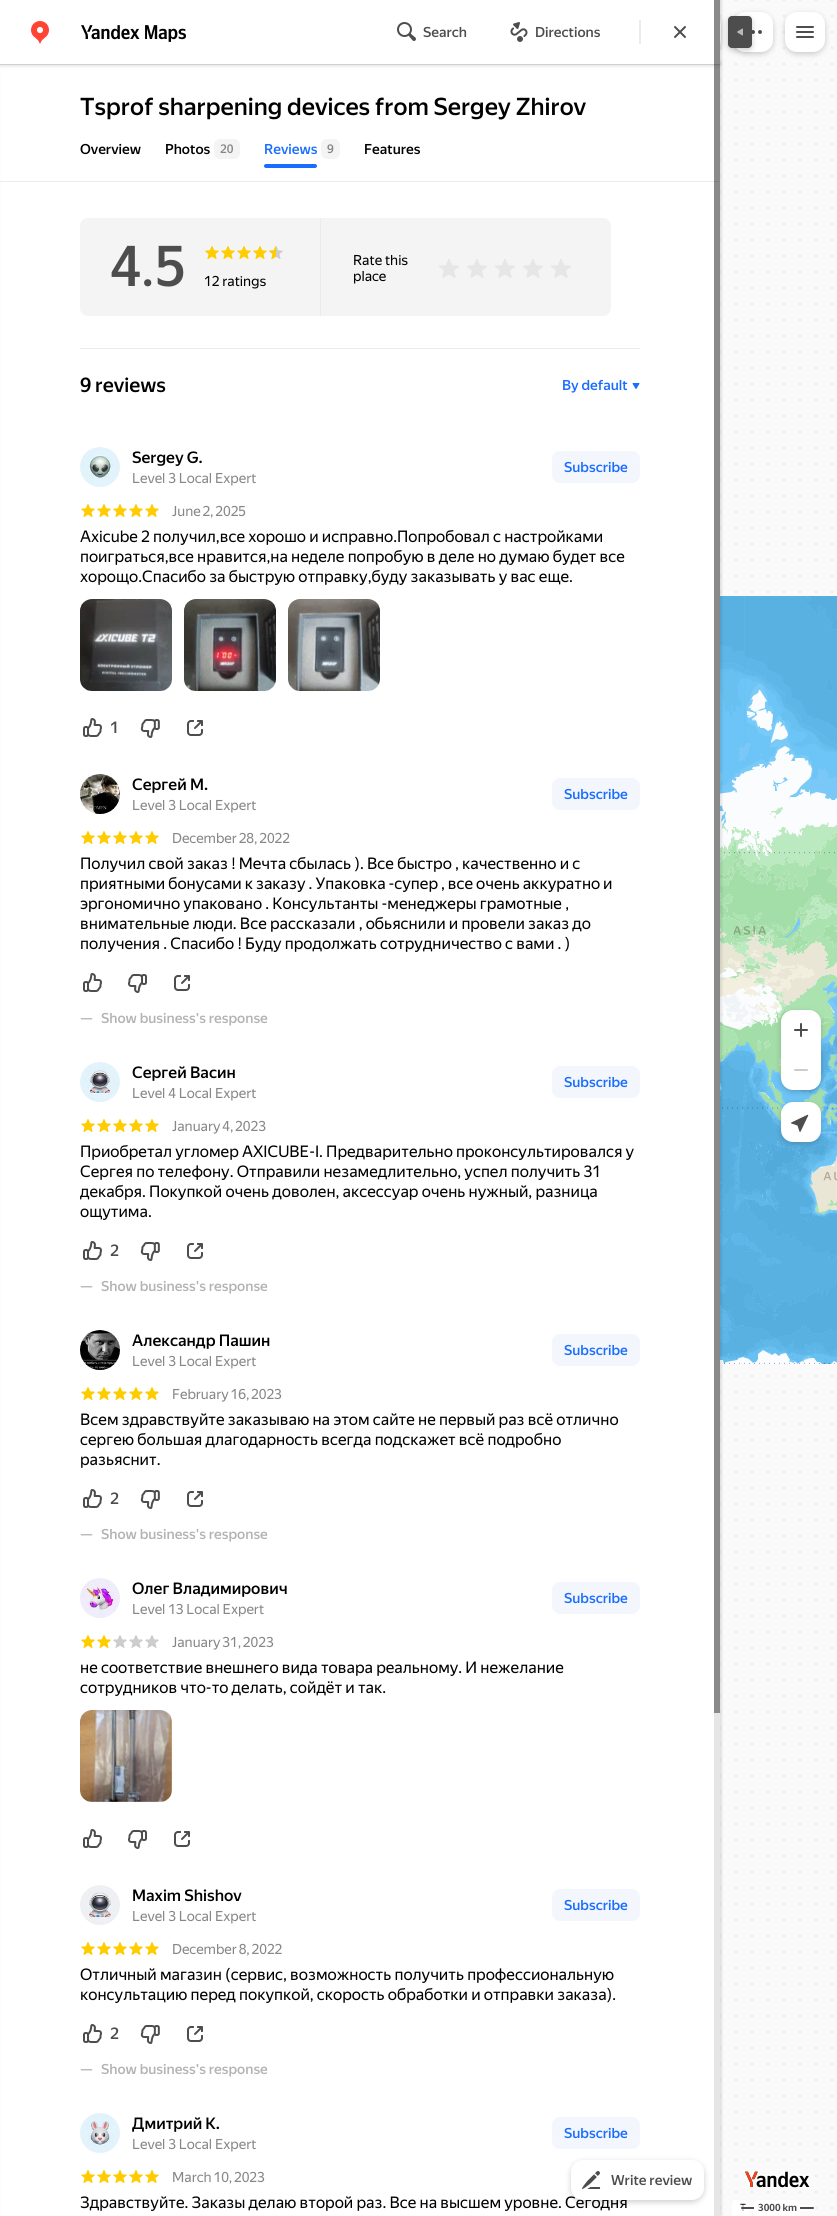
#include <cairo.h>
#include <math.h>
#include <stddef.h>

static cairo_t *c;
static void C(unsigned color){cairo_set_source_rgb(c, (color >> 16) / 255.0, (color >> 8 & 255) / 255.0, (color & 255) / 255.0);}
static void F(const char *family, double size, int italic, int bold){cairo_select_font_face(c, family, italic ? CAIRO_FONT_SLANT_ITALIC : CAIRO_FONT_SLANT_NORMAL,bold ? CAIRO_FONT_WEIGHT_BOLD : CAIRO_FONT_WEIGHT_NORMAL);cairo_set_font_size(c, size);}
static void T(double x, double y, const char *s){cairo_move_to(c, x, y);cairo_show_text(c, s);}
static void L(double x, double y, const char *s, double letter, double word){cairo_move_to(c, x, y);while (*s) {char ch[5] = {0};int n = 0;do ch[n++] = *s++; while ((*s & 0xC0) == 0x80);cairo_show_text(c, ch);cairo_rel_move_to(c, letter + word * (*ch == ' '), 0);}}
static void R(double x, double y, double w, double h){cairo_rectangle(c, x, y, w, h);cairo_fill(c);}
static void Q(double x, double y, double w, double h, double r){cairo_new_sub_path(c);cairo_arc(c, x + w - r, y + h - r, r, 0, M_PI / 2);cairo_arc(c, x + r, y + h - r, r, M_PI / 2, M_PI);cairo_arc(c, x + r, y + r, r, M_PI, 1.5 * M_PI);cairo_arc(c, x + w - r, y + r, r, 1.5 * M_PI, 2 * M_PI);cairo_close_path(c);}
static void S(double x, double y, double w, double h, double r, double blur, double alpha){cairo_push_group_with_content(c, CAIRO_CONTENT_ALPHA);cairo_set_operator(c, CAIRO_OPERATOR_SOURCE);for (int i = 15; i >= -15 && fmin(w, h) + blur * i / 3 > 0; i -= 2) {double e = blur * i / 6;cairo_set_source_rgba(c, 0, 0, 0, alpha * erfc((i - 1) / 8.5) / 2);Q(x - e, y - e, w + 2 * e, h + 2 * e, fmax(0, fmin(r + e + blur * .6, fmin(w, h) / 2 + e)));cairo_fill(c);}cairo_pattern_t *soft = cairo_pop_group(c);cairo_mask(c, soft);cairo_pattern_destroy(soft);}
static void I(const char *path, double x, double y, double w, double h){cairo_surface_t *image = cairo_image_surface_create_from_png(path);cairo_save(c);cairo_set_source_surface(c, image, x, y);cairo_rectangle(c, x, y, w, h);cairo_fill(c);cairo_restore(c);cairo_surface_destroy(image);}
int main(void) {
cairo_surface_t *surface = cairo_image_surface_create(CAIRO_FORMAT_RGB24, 837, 2216);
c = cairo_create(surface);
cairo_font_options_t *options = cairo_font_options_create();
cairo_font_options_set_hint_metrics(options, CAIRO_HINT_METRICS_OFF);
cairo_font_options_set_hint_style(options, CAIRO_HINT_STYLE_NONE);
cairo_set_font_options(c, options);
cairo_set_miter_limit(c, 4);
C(0xffffff);
cairo_paint(c);
I("1.png",720,0,117,2216);
C(0x000000);
S(641,14,80,40,12,3,.2);
C(0xffffff);
cairo_new_path(c);
cairo_move_to(c,681,12);
cairo_line_to(c,709,12);
cairo_curve_to(c,715.5,12,721,17.5,721,24);
cairo_line_to(c,721,40);
cairo_curve_to(c,721,46.5,715.5,52,709,52);
cairo_line_to(c,681,52);
cairo_close_path(c);
cairo_fill(c);
I("36.png",720,596,24,256);
I("38.png",720,852,24,256);
I("40.png",720,1108,24,256);
C(0x000000);
S(2,0,720,2216,0,1,.1);
C(0xffffff);
R(1,65,719,2151);
C(0xebebeb);
R(0,64,720,1);
C(0x000000);
S(0,61,720,4,0,2,.2);
S(733,14,40,40,12,3,.2);
C(0xffffff);
Q(733,12,40,40,12);
cairo_fill(c);
I("30.png",752,30,10,4);
C(0x000000);
S(728,18,24,32,4,3,.2);
C(0xffffff);
R(0,0,720,64);
I("2.png",31,21,18,23);
I("3.png",81,25,105,17);
I("4.png",397,22,19,19);
F("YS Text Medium",14,0,0);
C(0x4d4d4d);
T(423,37,"Search");
I("5.png",510,22,18,20);
T(535,37,"Directions");
C(0xebebeb);
R(639,20,2,24);
I("6.png",674,26,12,12);
F("YS Text Medium",24,0,0);
C(0x000000);
T(80,115,"Tsprof sharpening devices from Sergey Zhirov");
F("YS Text Medium",14,0,0);
T(80,154,"Overview");
T(165,154,"Photos");
C(0xf4f4f4);
Q(214,139,26,20,6);
cairo_fill(c);
F("YS Text Medium",12,0,0);
C(0x878787);
T(220,153,"20");
F("YS Text Medium",14,0,0);
C(0x196dff);
T(264,154,"Reviews");
C(0xf4f4f4);
Q(321,139,19,20,6);
cairo_fill(c);
F("YS Text Medium",12,0,0);
C(0x878787);
T(327,153,"9");
F("YS Text Medium",14,0,0);
C(0x000000);
T(364,154,"Features");
C(0x196dff);
Q(264,164,53,4,2);
cairo_fill(c);
C(0xebebeb);
R(0,181,720,1);
C(0xf4f4f4);
cairo_new_path(c);
cairo_move_to(c,88,218);
cairo_line_to(c,320,218);
cairo_line_to(c,320,316);
cairo_line_to(c,88,316);
cairo_curve_to(c,83.5,316,80,312.5,80,308);
cairo_line_to(c,80,226);
cairo_curve_to(c,80,221.5,83.5,218,88,218);
cairo_close_path(c);
cairo_fill(c);
F("YS Text Medium",56,0,0);
C(0x4d4d4d);
T(110,286,"4");
F("YS Text",56,0,0);
T(141,286,".");
F("YS Text Medium",56,0,0);
T(155,286,"5");
I("7.png",205,246,14,13);
I("7.png",221,246,14,13);
I("7.png",237,246,14,13);
I("7.png",253,246,14,13);
I("8.png",269,246,14,13);
F("YS Text",14,0,0);
C(0x000000);
T(204,286,"12 ratings");
C(0xf4f4f4);
cairo_new_path(c);
cairo_move_to(c,320,218);
cairo_line_to(c,603,218);
cairo_curve_to(c,607.5,218,611,221.5,611,226);
cairo_line_to(c,611,308);
cairo_curve_to(c,611,312.5,607.5,316,603,316);
cairo_line_to(c,320,316);
cairo_close_path(c);
cairo_fill(c);
C(0xebebeb);
R(320,218,1,98);
C(0x000000);
T(353,265,"Rate this");
T(353,281,"place");
I("9.png",439,259,20,19);
I("9.png",467,259,20,19);
I("9.png",495,259,20,19);
I("9.png",523,259,20,19);
I("9.png",551,259,20,19);
C(0xebebeb);
R(80,348,560,1);
F("YS Text Medium",20,0,0);
C(0x000000);
T(80,392,"9 reviews");
F("YS Text Medium",14,0,0);
C(0x196dff);
T(562,390,"By default");
I("10.png",632,383,8,6);
I("11.png",80,447,40,40);
F("YS Text Medium",16,0,0);
C(0x000000);
T(132,463,"Sergey G.");
F("YS Text",14,0,0);
C(0x878787);
T(132,483,"Level 3 Local Expert");
C(0xf3f6fc);
Q(552,451,88,32,8);
cairo_fill(c);
F("YS Text Medium",14,0,0);
C(0x196dff);
T(564,472,"Subscribe");
I("12.png",81,504,14,13);
I("12.png",97,504,14,13);
I("12.png",113,504,14,13);
I("12.png",129,504,14,13);
I("12.png",145,504,14,13);
F("YS Text",14,0,0);
C(0x878787);
L(172,516,"June 2, 2025",0,-1);
F("YS Text",16,0,0);
C(0x000000);
T(80,542,"Axicube 2 получил,все хорошо и исправно.Попробовал с настройками");
T(80,562,"поиграться,все нравится,на неделе попробую в деле но думаю будет все");
T(80,582,"хорощо.Спасибо за быструю отправку,буду заказывать у вас еще.");
I("13.png",80,599,92,92);
I("14.png",184,599,92,92);
I("15.png",288,599,92,92);
I("16.png",83,718,19,19);
F("YS Text Medium",16,0,0);
C(0x4d4d4d);
T(110,733,"1");
I("17.png",140,719,20,19);
I("18.png",187,720,16,16);
I("19.png",80,774,40,40);
C(0x000000);
T(132,790,"Сергей М.");
F("YS Text",14,0,0);
C(0x878787);
T(132,810,"Level 3 Local Expert");
C(0xf3f6fc);
Q(552,778,88,32,8);
cairo_fill(c);
F("YS Text Medium",14,0,0);
C(0x196dff);
T(564,799,"Subscribe");
I("12.png",81,831,14,13);
I("12.png",97,831,14,13);
I("12.png",113,831,14,13);
I("12.png",129,831,14,13);
I("12.png",145,831,14,13);
F("YS Text",14,0,0);
C(0x878787);
L(172,843,"December 28, 2022",0,-1);
F("YS Text",16,0,0);
C(0x000000);
T(80,869,"Получил свой заказ ! Мечта сбылась ). Все быстро , качественно и с");
L(80,889,"приятными бонусами к заказу . Упаковка -супер , все очень аккуратно и",0,-.25);
T(80,909,"эргономично упаковано . Консультанты -менеджеры грамотные ,");
T(80,929,"внимательные люди. Все рассказали , обьяснили и провели заказ до");
T(80,949,"получения . Спасибо !");
T(245,949,"Буду продолжать сотрудничество с вами . )");
I("16.png",83,973,19,19);
I("20.png",128,974,19,19);
I("18.png",174,975,16,16);
F("YS Text Medium",14,0,0);
C(0xb3b3b3);
T(80,1023,"—");
T(101,1023,"Show business's response");
I("21.png",80,1062,40,40);
F("YS Text Medium",16,0,0);
C(0x000000);
T(132,1078,"Сергей Васин");
F("YS Text",14,0,0);
C(0x878787);
T(132,1098,"Level 4 Local Expert");
C(0xf3f6fc);
Q(552,1066,88,32,8);
cairo_fill(c);
F("YS Text Medium",14,0,0);
C(0x196dff);
T(564,1087,"Subscribe");
I("12.png",81,1119,14,13);
I("12.png",97,1119,14,13);
I("12.png",113,1119,14,13);
I("12.png",129,1119,14,13);
I("12.png",145,1119,14,13);
F("YS Text",14,0,0);
C(0x878787);
L(172,1131,"January 4, 2023",0,-1);
F("YS Text",16,0,0);
C(0x000000);
T(80,1157,"Приобретал угломер AXICUBE-I. Предварительно проконсультировался у");
T(80,1177,"Сергея по телефону. Отправили незамедлительно, успел получить 31");
T(80,1197,"декабря. Покупкой очень доволен, аксессуар очень нужный, разница");
T(80,1217,"ощутима.");
I("16.png",83,1241,19,19);
F("YS Text Medium",16,0,0);
C(0x4d4d4d);
T(110,1256,"2");
I("17.png",140,1242,20,19);
I("18.png",187,1243,16,16);
F("YS Text Medium",14,0,0);
C(0xb3b3b3);
T(80,1291,"—");
T(101,1291,"Show business's response");
I("22.png",80,1330,40,40);
F("YS Text Medium",16,0,0);
C(0x000000);
T(132,1346,"Александр Пашин");
F("YS Text",14,0,0);
C(0x878787);
T(132,1366,"Level 3 Local Expert");
C(0xf3f6fc);
Q(552,1334,88,32,8);
cairo_fill(c);
F("YS Text Medium",14,0,0);
C(0x196dff);
T(564,1355,"Subscribe");
I("12.png",81,1387,14,13);
I("12.png",97,1387,14,13);
I("12.png",113,1387,14,13);
I("12.png",129,1387,14,13);
I("12.png",145,1387,14,13);
F("YS Text",14,0,0);
C(0x878787);
L(172,1399,"February 16, 2023",0,-1);
F("YS Text",16,0,0);
C(0x000000);
T(80,1425,"Всем здравствуйте заказываю на этом сайте не первый раз всё отлично");
T(80,1445,"сергею большая длагодарность всегда подскажет всё подробно");
T(80,1465,"разьяснит.");
I("16.png",83,1489,19,19);
F("YS Text Medium",16,0,0);
C(0x4d4d4d);
T(110,1504,"2");
I("17.png",140,1490,20,19);
I("18.png",187,1491,16,16);
F("YS Text Medium",14,0,0);
C(0xb3b3b3);
T(80,1539,"—");
T(101,1539,"Show business's response");
I("23.png",80,1578,40,40);
F("YS Text Medium",16,0,0);
C(0x000000);
T(132,1594,"Олег Владимирович");
F("YS Text",14,0,0);
C(0x878787);
T(132,1614,"Level 13 Local Expert");
C(0xf3f6fc);
Q(552,1582,88,32,8);
cairo_fill(c);
F("YS Text Medium",14,0,0);
C(0x196dff);
T(564,1603,"Subscribe");
I("12.png",81,1635,14,13);
I("12.png",97,1635,14,13);
I("24.png",113,1635,14,13);
I("24.png",129,1635,14,13);
I("24.png",145,1635,14,13);
F("YS Text",14,0,0);
C(0x878787);
L(172,1647,"January 31, 2023",0,-1);
F("YS Text",16,0,0);
C(0x000000);
T(80,1673,"не соответствие внешнего вида товара реальному. И нежелание");
T(80,1693,"сотрудников что-то делать, сойдёт и так.");
I("25.png",80,1710,92,92);
I("16.png",83,1829,19,19);
I("20.png",128,1830,19,19);
I("18.png",174,1831,16,16);
I("26.png",80,1885,40,40);
F("YS Text Medium",16,0,0);
T(132,1901,"Maxim Shishov");
F("YS Text",14,0,0);
C(0x878787);
T(132,1921,"Level 3 Local Expert");
C(0xf3f6fc);
Q(552,1889,88,32,8);
cairo_fill(c);
F("YS Text Medium",14,0,0);
C(0x196dff);
T(564,1910,"Subscribe");
I("12.png",81,1942,14,13);
I("12.png",97,1942,14,13);
I("12.png",113,1942,14,13);
I("12.png",129,1942,14,13);
I("12.png",145,1942,14,13);
F("YS Text",14,0,0);
C(0x878787);
L(172,1954,"December 8, 2022",0,-1);
F("YS Text",16,0,0);
C(0x000000);
T(80,1980,"Отличный магазин (сервис, возможность получить профессиональную");
T(80,2000,"консультацию перед покупкой, скорость обработки и отправки заказа).");
I("16.png",83,2024,19,19);
F("YS Text Medium",16,0,0);
C(0x4d4d4d);
T(110,2039,"2");
I("17.png",140,2025,20,19);
I("18.png",187,2026,16,16);
F("YS Text Medium",14,0,0);
C(0xb3b3b3);
T(80,2074,"—");
T(101,2074,"Show business's response");
I("27.png",80,2113,40,40);
F("YS Text Medium",16,0,0);
C(0x000000);
T(132,2129,"Дмитрий К.");
F("YS Text",14,0,0);
C(0x878787);
T(132,2149,"Level 3 Local Expert");
C(0xf3f6fc);
Q(552,2117,88,32,8);
cairo_fill(c);
F("YS Text Medium",14,0,0);
C(0x196dff);
T(564,2138,"Subscribe");
I("12.png",81,2170,14,13);
I("12.png",97,2170,14,13);
I("12.png",113,2170,14,13);
I("12.png",129,2170,14,13);
I("12.png",145,2170,14,13);
F("YS Text",14,0,0);
C(0x878787);
L(172,2182,"March 10, 2023",0,-1);
F("YS Text",16,0,0);
C(0x000000);
T(80,2208,"Здравствуйте. Заказы делаю второй раз. Все на высшем уровне. Сегодня");
C(0x000000);
S(571,2162,133,40,12,3,.2);
C(0xffffff);
Q(571,2160,133,40,12);
cairo_fill(c);
I("28.png",582,2171,19,18);
F("YS Text Medium",14,0,0);
C(0x4d4d4d);
T(611,2185,"Write review");
cairo_set_source_rgba(c,0,0,0,0.1);
R(714,0,6,2216);
cairo_set_source_rgba(c,0,0,0,0.4);
R(714,0,6,1713);
C(0x4d4d4d);
Q(728,16,24,32,4);
cairo_fill(c);
I("29.png",737,28,6,8);
C(0x000000);
S(785,14,40,40,12,3,.2);
C(0xffffff);
Q(785,12,40,40,12);
cairo_fill(c);
I("31.png",796,26,18,12);
I("39.png",744,852,93,256);
C(0x000000);
S(781,1012,40,80,12,3,.2);
C(0xffffff);
cairo_new_path(c);
cairo_move_to(c,793,1010);
cairo_line_to(c,809,1010);
cairo_curve_to(c,815.5,1010,821,1015.5,821,1022);
cairo_line_to(c,821,1050);
cairo_line_to(c,781,1050);
cairo_line_to(c,781,1022);
cairo_curve_to(c,781,1015.5,786.5,1010,793,1010);
cairo_close_path(c);
cairo_fill(c);
I("32.png",794,1023,14,14);
cairo_new_path(c);
cairo_move_to(c,781,1050);
cairo_line_to(c,821,1050);
cairo_line_to(c,821,1078);
cairo_curve_to(c,821,1084.5,815.5,1090,809,1090);
cairo_line_to(c,793,1090);
cairo_curve_to(c,786.5,1090,781,1084.5,781,1078);
cairo_close_path(c);
cairo_fill(c);
I("33.png",794,1069,14,2);
I("41.png",744,1108,93,256);
C(0x000000);
S(781,1104,40,40,12,3,.2);
C(0xffffff);
Q(781,1102,40,40,12);
cairo_fill(c);
I("34.png",791,1114,18,18);
I("35.png",745,2171,65,17);
cairo_new_path(c);
cairo_move_to(c,736,2200);
cairo_line_to(c,745,2200);
cairo_curve_to(c,747,2200,749,2202,749,2204);
cairo_line_to(c,749,2216);
cairo_line_to(c,732,2216);
cairo_line_to(c,732,2204);
cairo_curve_to(c,732,2202,734,2200,736,2200);
cairo_close_path(c);
cairo_fill(c);
F("YS Text",10,0,0);
C(0x000000);
T(740,2211,"T");
cairo_set_source_rgba(c,1,1,1,0.6);
Q(739,2205,77,6,3);
cairo_fill(c);
C(0x4d4d4d);
Q(741,2207,73,2,1);
cairo_fill(c);
C(0xffffff);
cairo_new_path(c);
cairo_move_to(c,758,2200);
cairo_line_to(c,796,2200);
cairo_curve_to(c,798,2200,800,2202,800,2204);
cairo_line_to(c,800,2216);
cairo_line_to(c,754,2216);
cairo_line_to(c,754,2204);
cairo_curve_to(c,754,2202,756,2200,758,2200);
cairo_close_path(c);
cairo_fill(c);
F("YS Text",10,0,1);
C(0x4d4d4d);
T(758,2211,"3000 km");
I("37.png",744,596,93,256);
cairo_surface_write_to_png(surface, "o.png");
cairo_font_options_destroy(options);
cairo_destroy(c);
cairo_surface_destroy(surface);
return 0;
}
